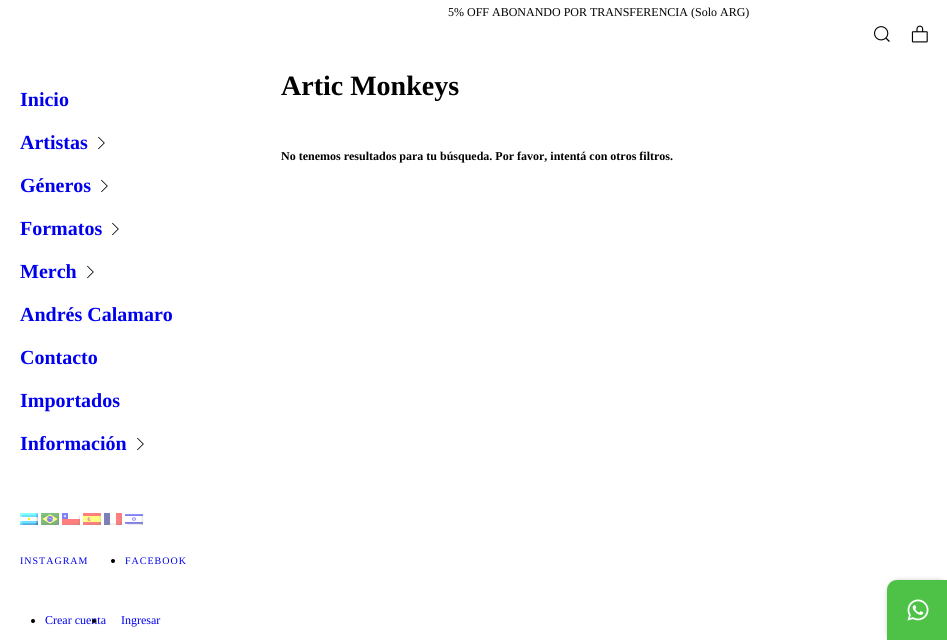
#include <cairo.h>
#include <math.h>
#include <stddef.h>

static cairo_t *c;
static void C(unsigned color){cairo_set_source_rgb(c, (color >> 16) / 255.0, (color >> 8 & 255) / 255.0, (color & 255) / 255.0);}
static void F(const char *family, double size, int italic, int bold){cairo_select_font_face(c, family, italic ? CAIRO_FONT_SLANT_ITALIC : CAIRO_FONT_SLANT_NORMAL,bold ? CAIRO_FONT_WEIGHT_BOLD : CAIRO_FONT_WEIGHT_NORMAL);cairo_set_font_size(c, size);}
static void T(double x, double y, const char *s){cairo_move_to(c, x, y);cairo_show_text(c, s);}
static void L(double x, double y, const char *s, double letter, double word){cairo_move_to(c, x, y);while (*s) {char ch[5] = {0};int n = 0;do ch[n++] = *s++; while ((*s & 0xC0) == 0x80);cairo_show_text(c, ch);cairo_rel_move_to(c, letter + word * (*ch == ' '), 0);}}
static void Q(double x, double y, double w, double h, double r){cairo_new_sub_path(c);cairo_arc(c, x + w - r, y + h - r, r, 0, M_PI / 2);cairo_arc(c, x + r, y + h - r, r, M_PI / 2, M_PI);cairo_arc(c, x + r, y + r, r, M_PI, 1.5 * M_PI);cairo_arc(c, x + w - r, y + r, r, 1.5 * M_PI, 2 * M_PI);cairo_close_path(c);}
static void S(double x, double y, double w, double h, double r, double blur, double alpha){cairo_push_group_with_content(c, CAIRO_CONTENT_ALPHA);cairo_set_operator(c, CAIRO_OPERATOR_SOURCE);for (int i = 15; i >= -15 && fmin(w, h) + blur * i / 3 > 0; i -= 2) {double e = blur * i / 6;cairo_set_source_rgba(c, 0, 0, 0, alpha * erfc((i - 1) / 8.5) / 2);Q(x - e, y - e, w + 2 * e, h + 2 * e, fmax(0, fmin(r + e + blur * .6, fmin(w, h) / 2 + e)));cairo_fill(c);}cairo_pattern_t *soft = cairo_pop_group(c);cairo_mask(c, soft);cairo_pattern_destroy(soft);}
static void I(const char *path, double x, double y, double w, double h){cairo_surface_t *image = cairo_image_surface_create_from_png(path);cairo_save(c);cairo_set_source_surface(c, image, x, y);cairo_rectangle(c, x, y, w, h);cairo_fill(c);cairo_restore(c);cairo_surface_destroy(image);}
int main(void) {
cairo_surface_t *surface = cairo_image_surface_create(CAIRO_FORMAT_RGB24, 947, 640);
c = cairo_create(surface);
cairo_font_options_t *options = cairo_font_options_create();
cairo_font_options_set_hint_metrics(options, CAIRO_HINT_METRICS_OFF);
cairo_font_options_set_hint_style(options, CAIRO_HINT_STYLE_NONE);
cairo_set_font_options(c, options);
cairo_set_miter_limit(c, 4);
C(0xffffff);
cairo_paint(c);
F("Liberation Serif",12,0,0);
C(0x000000);
T(448,16,"5% OFF ABONANDO POR TRANSFERENCIA (Solo ARG)");
F("Liberation Serif",28,0,1);
T(281,95,"Artic Monkeys");
F("Liberation Serif",12,0,1);
T(281,160,"No tenemos resultados para tu búsqueda. Por favor, intentá con otros filtros.");
I("1.png",874,26,16,16);
I("2.png",911,25,17,18);
F("Liberation Serif",20,0,1);
C(0x0000ee);
T(20,106,"Inicio");
T(20,149,"Artistas");
I("3.png",98,136,7,14);
T(20,192,"Géneros");
I("3.png",101,179,7,14);
T(20,235,"Formatos");
I("3.png",112,222,7,14);
T(20,278,"Merch");
I("3.png",87,265,7,14);
T(20,321,"Andrés Calamaro");
T(20,364,"Contacto");
T(20,407,"Importados");
T(20,450,"Información");
I("3.png",137,437,7,14);
I("4.png",20,513,18,12);
I("5.png",41,513,18,12);
I("6.png",62,513,18,12);
I("7.png",83,513,18,12);
I("8.png",104,513,18,12);
I("9.png",125,514,18,11);
F("Liberation Serif",10,0,0);
L(20,564,"INSTAGRAM",1,0);
C(0x000000);
cairo_new_path(c);
cairo_arc(c,113,561,2,0,2 * M_PI);
cairo_fill(c);
C(0x0000ee);
L(125,564,"FACEBOOK",1,0);
C(0x000000);
cairo_new_path(c);
cairo_arc(c,33,621,2,0,2 * M_PI);
cairo_fill(c);
F("Liberation Serif",12,0,0);
C(0x0000ee);
T(45,624,"Crear cuenta");
C(0x000000);
cairo_new_path(c);
cairo_arc(c,94,621,2,0,2 * M_PI);
cairo_fill(c);
C(0x0000ee);
T(121,624,"Ingresar");
C(0x000000);
S(889,582,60,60,10,3,.4);
C(0x4dc247);
cairo_new_path(c);
cairo_move_to(c,897,580);
cairo_line_to(c,947,580);
cairo_line_to(c,947,640);
cairo_line_to(c,887,640);
cairo_line_to(c,887,590);
cairo_curve_to(c,887,584.5,891.5,580,897,580);
cairo_close_path(c);
cairo_fill(c);
I("10.png",907,599,22,22);
cairo_surface_write_to_png(surface, "o.png");
cairo_font_options_destroy(options);
cairo_destroy(c);
cairo_surface_destroy(surface);
return 0;
}
